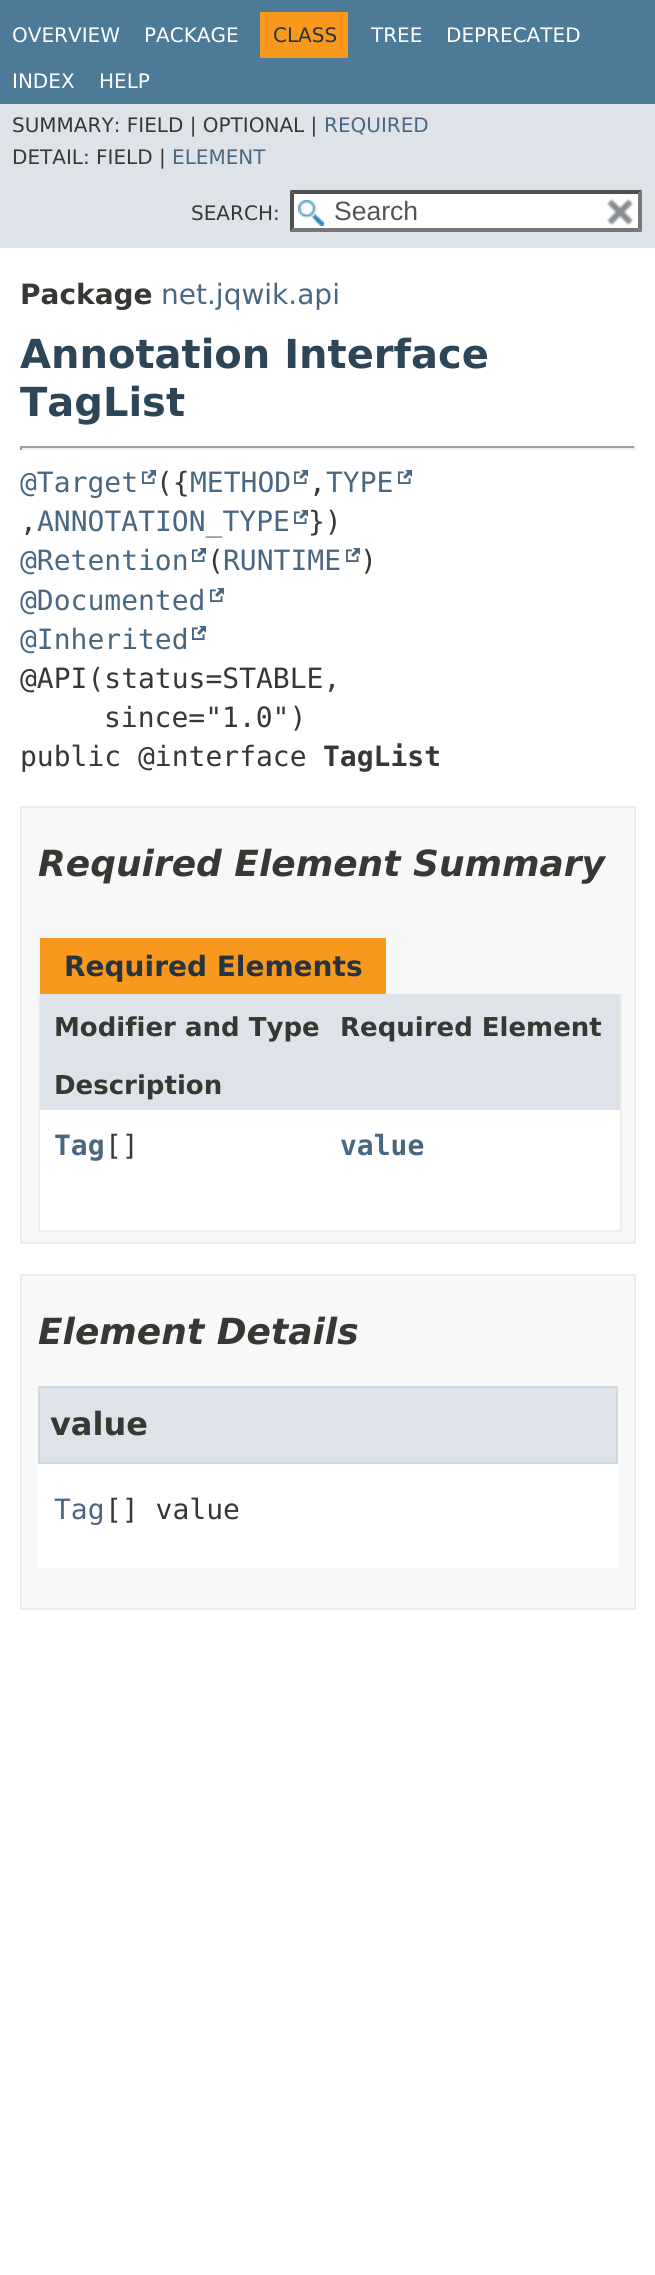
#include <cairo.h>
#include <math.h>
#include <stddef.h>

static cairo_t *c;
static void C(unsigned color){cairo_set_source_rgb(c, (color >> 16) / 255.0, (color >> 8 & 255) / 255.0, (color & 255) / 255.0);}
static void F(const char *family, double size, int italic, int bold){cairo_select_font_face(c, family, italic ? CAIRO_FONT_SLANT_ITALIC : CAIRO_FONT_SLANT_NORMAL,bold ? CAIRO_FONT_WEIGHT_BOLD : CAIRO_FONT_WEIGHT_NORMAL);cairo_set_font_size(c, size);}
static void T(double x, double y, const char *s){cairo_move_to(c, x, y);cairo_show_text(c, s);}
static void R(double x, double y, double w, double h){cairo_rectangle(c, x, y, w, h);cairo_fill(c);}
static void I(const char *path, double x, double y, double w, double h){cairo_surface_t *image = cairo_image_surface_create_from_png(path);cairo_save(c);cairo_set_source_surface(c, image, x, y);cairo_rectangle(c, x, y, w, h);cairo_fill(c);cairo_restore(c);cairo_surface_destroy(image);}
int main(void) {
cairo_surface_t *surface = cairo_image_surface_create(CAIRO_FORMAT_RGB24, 655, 2275);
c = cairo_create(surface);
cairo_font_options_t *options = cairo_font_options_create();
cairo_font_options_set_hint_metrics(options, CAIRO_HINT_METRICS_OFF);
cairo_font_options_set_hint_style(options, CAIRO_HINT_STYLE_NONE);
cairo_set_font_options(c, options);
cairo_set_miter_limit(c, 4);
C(0xffffff);
cairo_paint(c);
C(0x4d7a97);
R(0,0,655,104);
F("DejaVu Sans",20,0,0);
C(0xffffff);
T(12,42,"OVERVIEW");
T(144,42,"PACKAGE");
C(0xf8981d);
R(260,12,88,46);
C(0x253441);
T(273,42,"CLASS");
C(0xffffff);
T(371,42,"TREE");
T(446,42,"DEPRECATED");
T(12,88,"INDEX");
T(99,88,"HELP");
C(0xdee3e9);
R(0,104,655,144);
C(0x353833);
T(12,132,"SUMMARY: FIELD | OPTIONAL |");
C(0x4a6782);
T(324,132,"REQUIRED");
C(0x353833);
T(12,164,"DETAIL: FIELD |");
C(0x4a6782);
T(172,164,"ELEMENT");
C(0x353833);
T(191,220,"SEARCH:");
C(0xffffff);
R(290,190,352,42);
I("1.png",298,200,26,26);
C(0x4f4f4f);
cairo_new_path(c);
cairo_move_to(c,290,190);
cairo_line_to(c,642,190);
cairo_line_to(c,638,194);
cairo_line_to(c,294,194);
cairo_close_path(c);
cairo_fill(c);
C(0x767676);
cairo_new_path(c);
cairo_move_to(c,642,190);
cairo_line_to(c,642,232);
cairo_line_to(c,638,228);
cairo_line_to(c,638,194);
cairo_close_path(c);
cairo_fill(c);
cairo_new_path(c);
cairo_move_to(c,642,232);
cairo_line_to(c,290,232);
cairo_line_to(c,294,228);
cairo_line_to(c,638,228);
cairo_close_path(c);
cairo_fill(c);
C(0x4f4f4f);
cairo_new_path(c);
cairo_move_to(c,290,232);
cairo_line_to(c,290,190);
cairo_line_to(c,294,194);
cairo_line_to(c,294,228);
cairo_close_path(c);
cairo_fill(c);
F("Liberation Sans",26.5,0,0);
C(0x545454);
T(334,220,"Search");
I("2.png",606,198,27,27);
F("DejaVu Sans",28,0,1);
C(0x353833);
T(20,304,"Package");
F("DejaVu Sans",28,0,0);
C(0x4a6782);
T(161,304,"net.jqwik.api");
F("DejaVu Sans",40,0,1);
C(0x2c4557);
T(20,368,"Annotation Interface");
T(20,416,"TagList");
C(0x9f9f9f);
R(20,446,616,2);
C(0xeeeeee);
R(634,446,2,4);
R(20,448,616,2);
C(0x9f9f9f);
R(20,446,2,4);
F("DejaVu Sans Mono",28,0,0);
C(0x4a6782);
T(20,492,"@Target");
I("3.png",142,470,14,14);
C(0x353833);
T(156,492,"({");
C(0x4a6782);
T(190,492,"METHOD");
I("3.png",294,470,14,14);
C(0x353833);
T(309,492,",");
C(0x4a6782);
T(326,492,"TYPE");
I("3.png",398,470,14,14);
C(0x353833);
T(20,531,",");
C(0x4a6782);
T(37,531,"ANNOTATION_TYPE");
I("3.png",294,510,14,14);
C(0x353833);
T(308,531,"})");
C(0x4a6782);
T(20,570,"@Retention");
I("3.png",192,548,14,14);
C(0x353833);
T(207,570,"(");
C(0x4a6782);
T(223,570,"RUNTIME");
I("3.png",346,548,14,14);
C(0x353833);
T(360,570,")");
C(0x4a6782);
T(20,610,"@Documented");
I("3.png",210,588,14,14);
T(20,649,"@Inherited");
I("3.png",192,626,14,14);
C(0x353833);
T(20,688,"@API(status=STABLE,");
T(104,727,"since=\"1.0\")");
T(20,766,"public @interface");
F("DejaVu Sans Mono",28,0,1);
T(323,766,"TagList");
C(0xf8f8f8);
cairo_rectangle(c,21,807,614,436);
cairo_fill_preserve(c);
C(0xededed);
cairo_stroke(c);
F("DejaVu Sans",36,1,1);
C(0x353833);
T(38,876,"Required Element Summary");
C(0xf8981d);
R(40,938,346,56);
F("DejaVu Sans",28,0,1);
C(0x253441);
T(64,976,"Required Elements");
C(0xeeeeee);
R(620,994,2,238);
R(38,1230,584,2);
R(38,994,2,238);
C(0xdee3e9);
R(40,994,580,58);
F("DejaVu Sans",26,0,1);
C(0x353833);
T(54,1036,"Modifier and Type");
T(340,1036,"Required Element");
C(0xdee3e9);
R(40,1052,580,58);
C(0x353833);
T(54,1094,"Description");
C(0xffffff);
R(40,1110,580,62);
F("DejaVu Sans Mono",28,0,1);
C(0x4a6782);
T(54,1155,"Tag");
F("DejaVu Sans Mono",28,0,0);
C(0x353833);
T(105,1155,"[]");
F("DejaVu Sans Mono",28,0,1);
C(0x4a6782);
T(340,1155,"value");
C(0xffffff);
R(40,1172,580,58);
C(0xf8f8f8);
cairo_rectangle(c,21,1275,614,334);
cairo_fill_preserve(c);
C(0xededed);
cairo_stroke(c);
F("DejaVu Sans",36,1,1);
C(0x353833);
T(38,1344,"Element Details");
C(0xffffff);
R(38,1464,580,104);
C(0xdee3e9);
cairo_rectangle(c,39,1387,578,76);
cairo_fill_preserve(c);
C(0xd0d9e0);
cairo_stroke(c);
F("DejaVu Sans",32,0,1);
C(0x353833);
T(50,1435,"value");
F("DejaVu Sans Mono",28,0,0);
C(0x4a6782);
T(54,1519,"Tag");
C(0x353833);
T(105,1519,"[] value");
cairo_surface_write_to_png(surface, "o.png");
cairo_font_options_destroy(options);
cairo_destroy(c);
cairo_surface_destroy(surface);
return 0;
}
